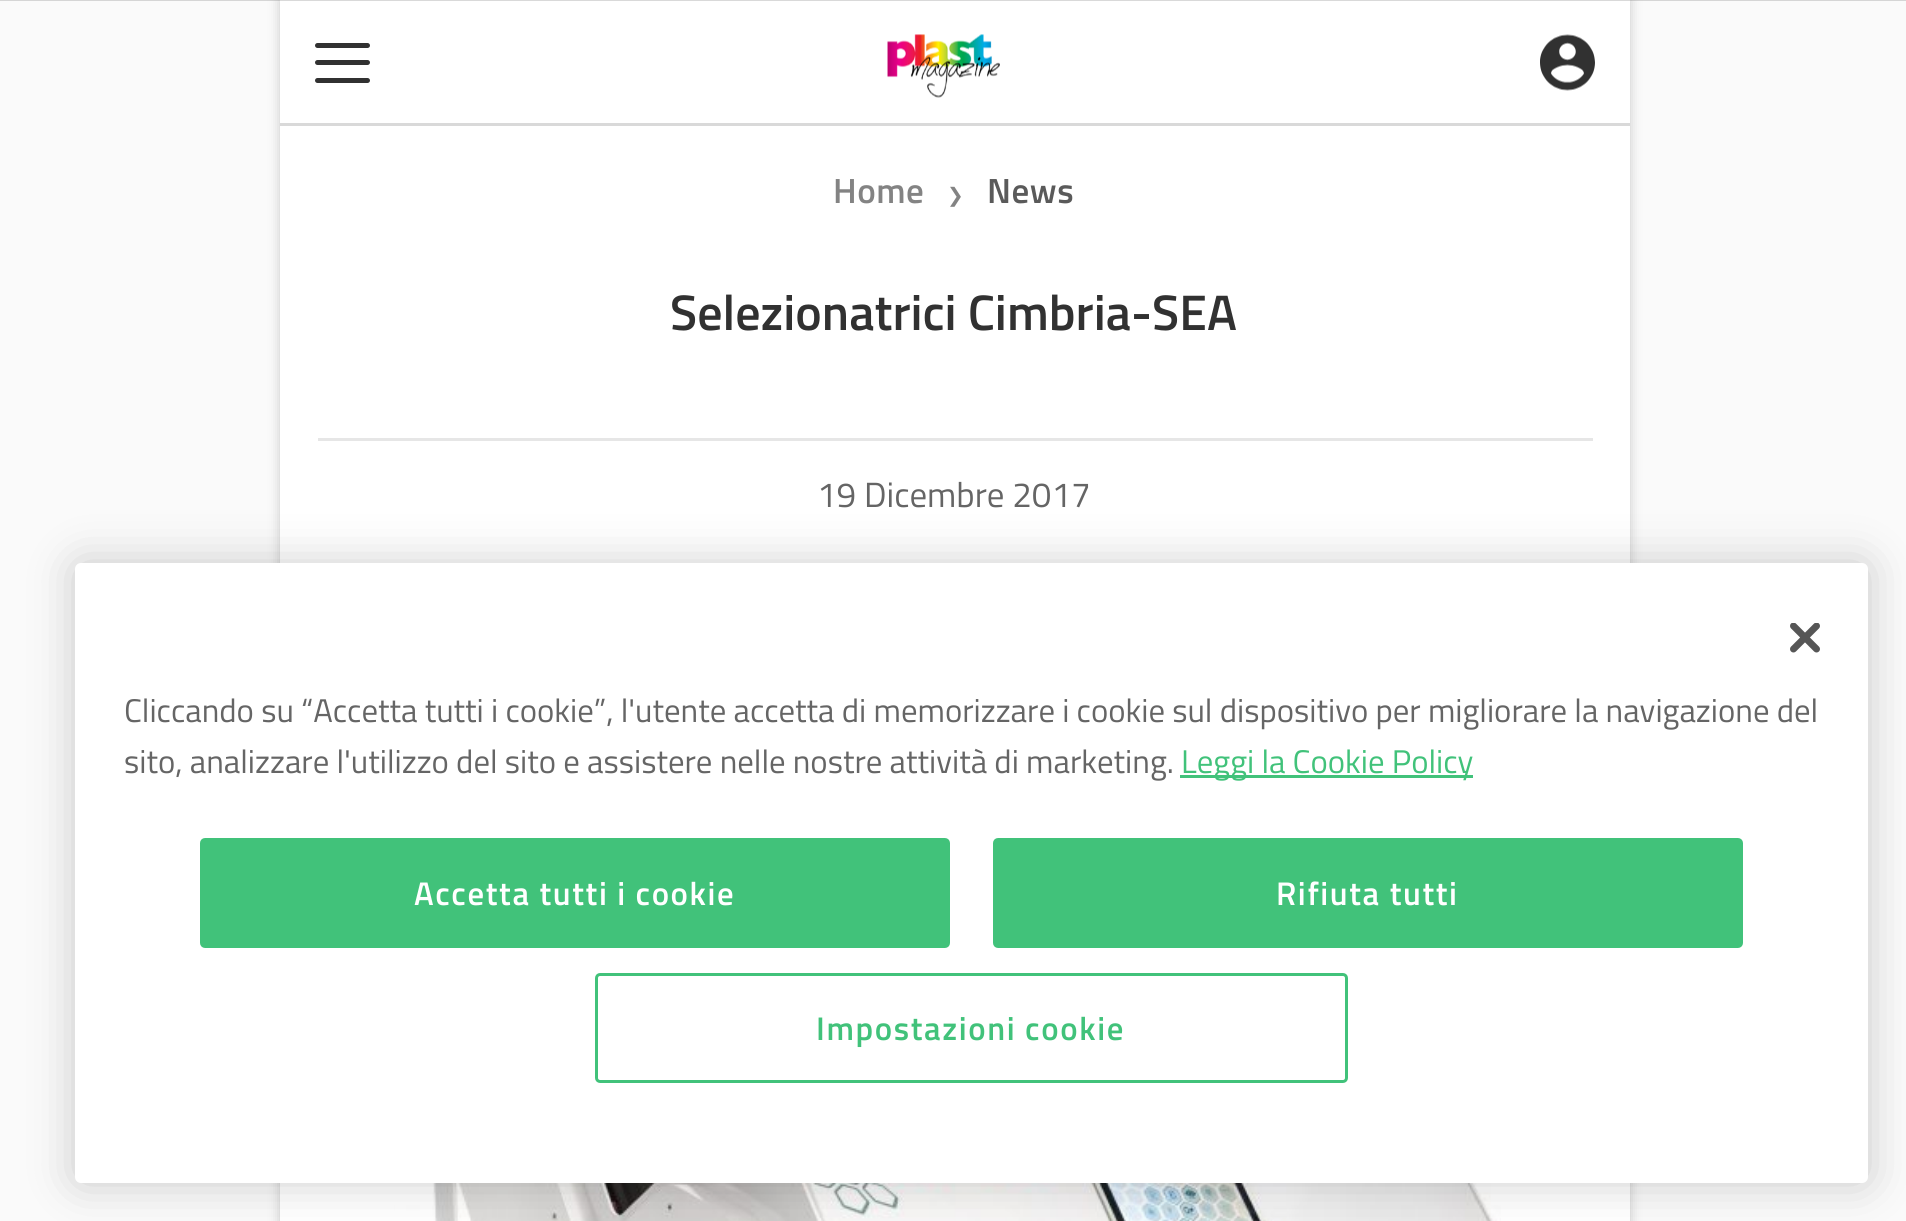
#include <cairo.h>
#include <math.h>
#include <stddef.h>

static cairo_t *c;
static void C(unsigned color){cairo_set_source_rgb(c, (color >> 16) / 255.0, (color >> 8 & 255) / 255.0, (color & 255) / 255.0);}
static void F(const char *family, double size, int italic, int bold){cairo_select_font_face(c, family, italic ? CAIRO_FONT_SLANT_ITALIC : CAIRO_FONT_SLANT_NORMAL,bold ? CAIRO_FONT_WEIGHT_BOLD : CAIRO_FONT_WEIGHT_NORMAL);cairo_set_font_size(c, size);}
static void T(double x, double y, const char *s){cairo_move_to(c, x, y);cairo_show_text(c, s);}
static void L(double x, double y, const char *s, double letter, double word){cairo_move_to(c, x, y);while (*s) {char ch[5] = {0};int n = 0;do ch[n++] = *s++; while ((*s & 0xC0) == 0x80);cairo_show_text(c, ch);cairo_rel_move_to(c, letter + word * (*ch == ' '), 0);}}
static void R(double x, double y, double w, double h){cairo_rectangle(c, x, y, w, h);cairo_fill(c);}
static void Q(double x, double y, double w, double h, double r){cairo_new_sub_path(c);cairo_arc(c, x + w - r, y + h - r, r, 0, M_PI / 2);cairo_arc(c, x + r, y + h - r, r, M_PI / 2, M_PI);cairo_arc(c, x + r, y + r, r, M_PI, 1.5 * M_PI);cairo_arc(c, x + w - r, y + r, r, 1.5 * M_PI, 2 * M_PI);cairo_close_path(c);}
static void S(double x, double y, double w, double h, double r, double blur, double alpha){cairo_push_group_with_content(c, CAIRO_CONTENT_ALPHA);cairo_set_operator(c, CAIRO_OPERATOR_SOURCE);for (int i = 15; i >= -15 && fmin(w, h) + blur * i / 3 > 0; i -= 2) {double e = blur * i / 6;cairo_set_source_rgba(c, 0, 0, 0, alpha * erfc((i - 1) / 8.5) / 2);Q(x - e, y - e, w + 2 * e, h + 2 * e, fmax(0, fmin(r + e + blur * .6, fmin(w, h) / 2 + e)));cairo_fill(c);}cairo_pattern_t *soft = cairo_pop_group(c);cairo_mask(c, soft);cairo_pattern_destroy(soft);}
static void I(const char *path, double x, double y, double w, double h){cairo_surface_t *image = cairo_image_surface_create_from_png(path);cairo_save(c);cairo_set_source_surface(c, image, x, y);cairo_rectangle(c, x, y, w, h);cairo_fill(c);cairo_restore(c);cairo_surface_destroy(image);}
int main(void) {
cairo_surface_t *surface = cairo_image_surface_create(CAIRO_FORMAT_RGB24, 1906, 1221);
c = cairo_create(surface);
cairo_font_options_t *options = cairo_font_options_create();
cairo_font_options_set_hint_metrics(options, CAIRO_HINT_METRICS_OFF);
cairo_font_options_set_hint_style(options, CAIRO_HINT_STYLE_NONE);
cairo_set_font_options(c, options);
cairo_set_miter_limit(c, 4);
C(0xfafafa);
cairo_paint(c);
C(0x000000);
S(280,0,1350,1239,0,6,.2);
C(0xffffff);
R(280,0,1350,1221);
cairo_set_source_rgba(c,0,0,0,0.15);
R(0,0,1906,1);
C(0xd9d9d9);
R(280,123,1350,3);
C(0x313131);
Q(315,43,55,5,2.5);
cairo_fill(c);
Q(315,60,55,5,2.5);
cairo_fill(c);
Q(315,78,55,5,2.5);
cairo_fill(c);
I("1.png",887,34,113,64);
I("2.png",1540,34,55,57);
C(0xe6e6e6);
R(318,438,1275,3);
F("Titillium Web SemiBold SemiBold",35,0,0);
C(0x838383);
L(833,203,"Home",.5,0);
F("DejaVu Sans",20,0,0);
T(947,202,"❯");
F("Titillium Web SemiBold SemiBold",35,0,0);
C(0x5a5a5a);
L(987,203,"News",.5,0);
F("Titillium Web SemiBold SemiBold",50,0,0);
C(0x313131);
T(670,330,"Selezionatrici Cimbria-SEA");
F("Titillium Web",35,0,0);
C(0x656565);
T(817,507,"19 Dicembre 2017");
I("3.png",394,1183,1107,38);
C(0x000000);
S(75,563,1793,620,6,22.5,.2);
C(0xffffff);
Q(75,563,1793,620,6);
cairo_fill(c);
I("4.png",1790,623,30,30);
F("Titillium Web",32.8,0,0);
C(0x656565);
T(124,722,"Cliccando su “Accetta tutti i cookie”, l'utente accetta di memorizzare i cookie sul dispositivo per migliorare la navigazione del");
T(124,773,"sito, analizzare l'utilizzo del sito e assistere nelle nostre attività di marketing.");
C(0x41c27a);
R(1180,775,293,3);
T(1181,773,"Leggi la Cookie Policy");
Q(201.5,839.5,747,107,3.5);
cairo_fill_preserve(c);
cairo_set_line_width(c,3);
cairo_stroke(c);
F("Titillium Web SemiBold SemiBold",32.8,0,0);
C(0xffffff);
L(414,905,"Accetta tutti i cookie",1.6,0);
C(0x41c27a);
Q(994.5,839.5,747,107,3.5);
cairo_fill_preserve(c);
cairo_stroke(c);
C(0xffffff);
L(1276,905,"Rifiuta tutti",1.6,0);
Q(596.5,974.5,750,107,3.5);
C(0x41c27a);
cairo_stroke(c);
L(816,1040,"Impostazioni cookie",1.6,0);
cairo_surface_write_to_png(surface, "o.png");
cairo_font_options_destroy(options);
cairo_destroy(c);
cairo_surface_destroy(surface);
return 0;
}
